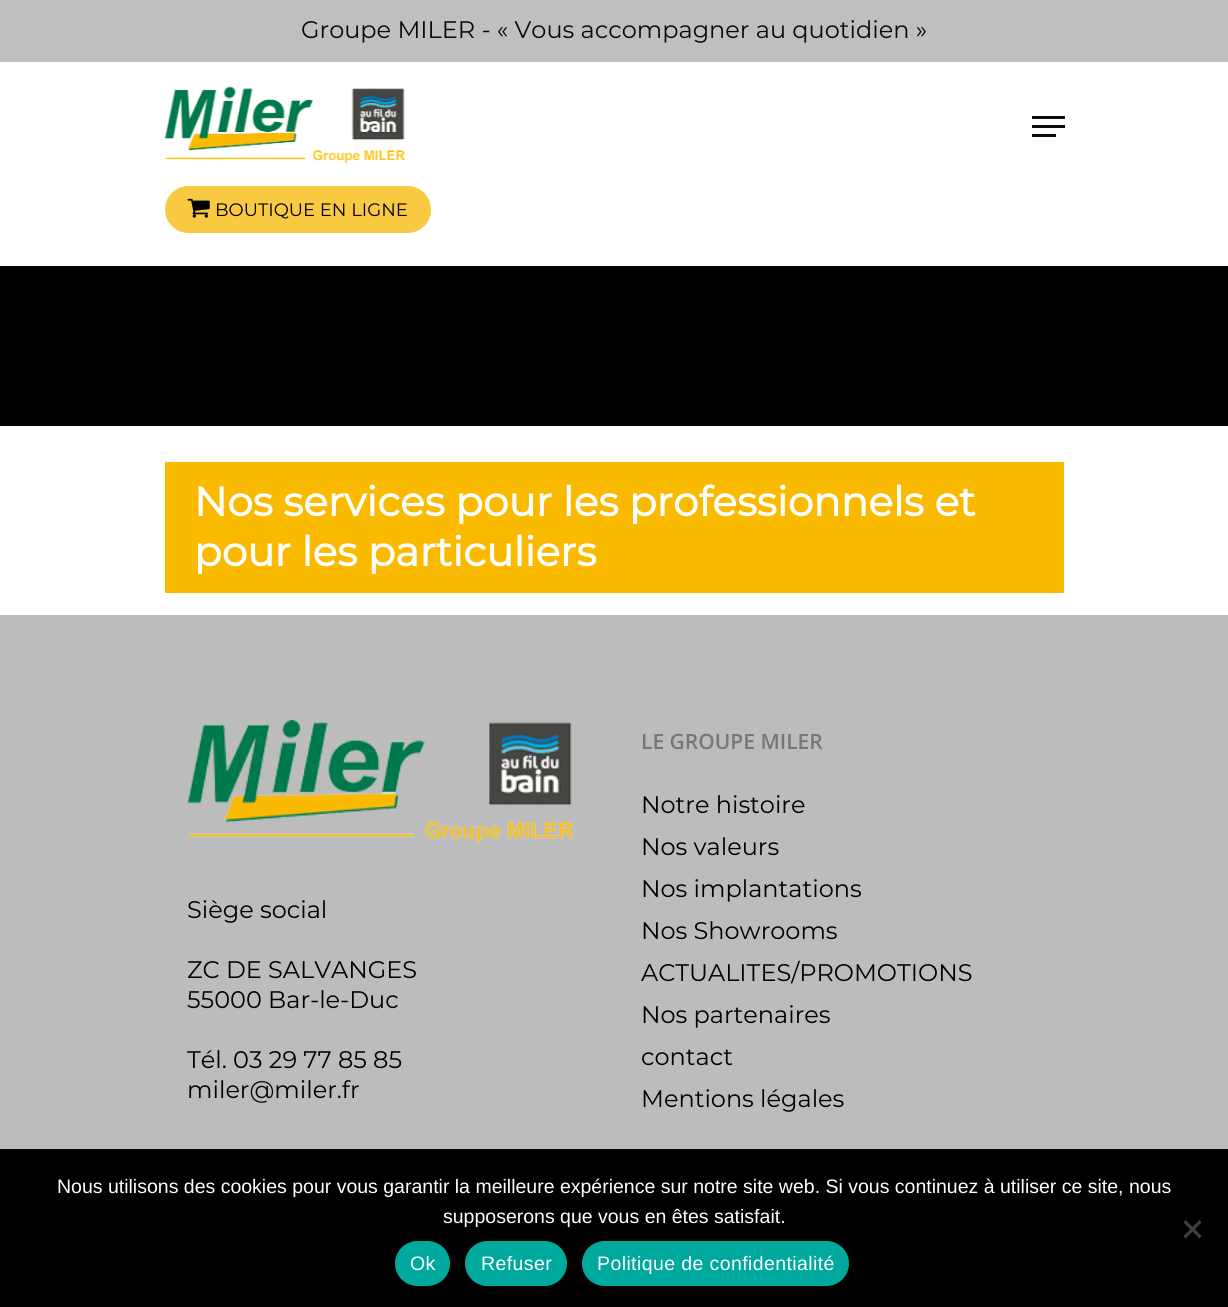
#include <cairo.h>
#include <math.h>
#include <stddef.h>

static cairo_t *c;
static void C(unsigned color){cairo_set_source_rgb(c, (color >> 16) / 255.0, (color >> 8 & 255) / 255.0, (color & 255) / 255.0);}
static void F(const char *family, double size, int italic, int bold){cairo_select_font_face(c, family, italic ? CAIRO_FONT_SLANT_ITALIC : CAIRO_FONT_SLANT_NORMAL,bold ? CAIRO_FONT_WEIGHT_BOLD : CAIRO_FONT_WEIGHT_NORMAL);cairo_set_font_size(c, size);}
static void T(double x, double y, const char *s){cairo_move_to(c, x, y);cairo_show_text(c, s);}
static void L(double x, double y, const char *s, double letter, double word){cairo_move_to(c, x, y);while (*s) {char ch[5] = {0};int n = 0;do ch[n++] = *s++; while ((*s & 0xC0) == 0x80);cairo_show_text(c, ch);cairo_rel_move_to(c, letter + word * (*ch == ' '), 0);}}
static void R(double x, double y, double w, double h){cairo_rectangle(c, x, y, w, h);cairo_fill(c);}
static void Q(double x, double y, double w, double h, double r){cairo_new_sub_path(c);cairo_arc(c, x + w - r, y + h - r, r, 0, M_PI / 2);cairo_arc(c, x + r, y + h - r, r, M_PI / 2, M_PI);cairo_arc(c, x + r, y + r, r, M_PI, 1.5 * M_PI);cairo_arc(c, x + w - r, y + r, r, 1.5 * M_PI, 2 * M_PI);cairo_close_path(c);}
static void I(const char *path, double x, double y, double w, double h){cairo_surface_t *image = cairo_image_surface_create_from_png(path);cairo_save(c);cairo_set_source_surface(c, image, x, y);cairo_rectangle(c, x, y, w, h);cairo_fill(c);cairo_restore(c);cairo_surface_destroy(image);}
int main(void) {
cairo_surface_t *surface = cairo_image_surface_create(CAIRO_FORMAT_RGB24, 1228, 1307);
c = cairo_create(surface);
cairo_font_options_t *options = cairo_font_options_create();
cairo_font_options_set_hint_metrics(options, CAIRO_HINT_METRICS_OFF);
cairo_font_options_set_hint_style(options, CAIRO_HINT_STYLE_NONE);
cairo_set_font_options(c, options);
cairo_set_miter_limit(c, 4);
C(0xffffff);
cairo_paint(c);
C(0xbfbfbf);
R(0,0,1228,62);
F("Montserrat Thin",24,0,0);
C(0x0a0a0a);
T(301,38,"Groupe MILER - « Vous accompagner au quotidien »");
I("1.png",164,86,242,78);
R(1032,116,33,3);
R(1032,134,24,3);
R(1032,125,33,3);
C(0xf8c941);
Q(165,186,266,47,23.5);
cairo_fill(c);
I("2.png",187,198,23,20);
F("Montserrat Thin",18,0,0);
C(0x000000);
T(215,216,"BOUTIQUE EN LIGNE");
R(0,266,1228,160);
C(0xfaba00);
R(165,462,899,131);
F("Montserrat",40.75,0,1);
C(0xffffff);
T(194,516,"Nos services pour les professionnels et");
T(194,566,"pour les particuliers");
C(0xbcbcbc);
R(0,615,1228,534);
I("3.png",187,720,386,123);
F("Montserrat Thin",24,0,0);
C(0x000000);
T(187,918,"Siège social");
T(187,978,"ZC DE SALVANGES");
T(187,1008,"55000 Bar-le-Duc");
T(187,1068,"Tél. 03 29 77 85 85");
T(187,1098,"miler@miler.fr");
F("Open Sans SemiBold",21,0,0);
C(0x777777);
T(641,749,"LE GROUPE MILER");
F("Montserrat Thin",24,0,0);
C(0x000000);
T(641,813,"Notre histoire");
T(641,855,"Nos valeurs");
T(641,897,"Nos implantations");
T(641,939,"Nos Showrooms");
T(641,981,"ACTUALITES/PROMOTIONS");
T(641,1023,"Nos partenaires");
T(641,1065,"contact");
T(641,1107,"Mentions légales");
R(0,1149,1228,158);
F("Liberation Sans",19.5,0,0);
C(0xffffff);
T(57,1193,"Nous utilisons des cookies pour vous garantir la meilleure expérience sur notre site web. Si vous continuez à utiliser ce site, nous");
T(443,1223,"supposerons que vous en êtes satisfait.");
C(0x404040);
cairo_new_path(c);
cairo_move_to(c,1199.5,1220);
cairo_line_to(c,1201.5,1222.5);
cairo_line_to(c,1185.5,1238.5);
cairo_line_to(c,1183.5,1236);
cairo_close_path(c);
cairo_fill(c);
cairo_new_path(c);
cairo_move_to(c,1183.5,1222.5);
cairo_line_to(c,1185.5,1220);
cairo_line_to(c,1201.5,1236);
cairo_line_to(c,1199.5,1238.5);
cairo_close_path(c);
cairo_fill(c);
C(0x00a99d);
Q(395,1241,55,45,22.5);
cairo_fill(c);
C(0xffffff);
L(410,1270,"Ok",.4,0);
C(0x00a99d);
Q(465,1241,102,45,22.5);
cairo_fill(c);
C(0xffffff);
L(481,1270,"Refuser",.4,0);
C(0x00a99d);
Q(582,1241,267,45,22.5);
cairo_fill(c);
C(0xffffff);
L(597,1270,"Politique de confidentialité",.4,0);
cairo_surface_write_to_png(surface, "o.png");
cairo_font_options_destroy(options);
cairo_destroy(c);
cairo_surface_destroy(surface);
return 0;
}
